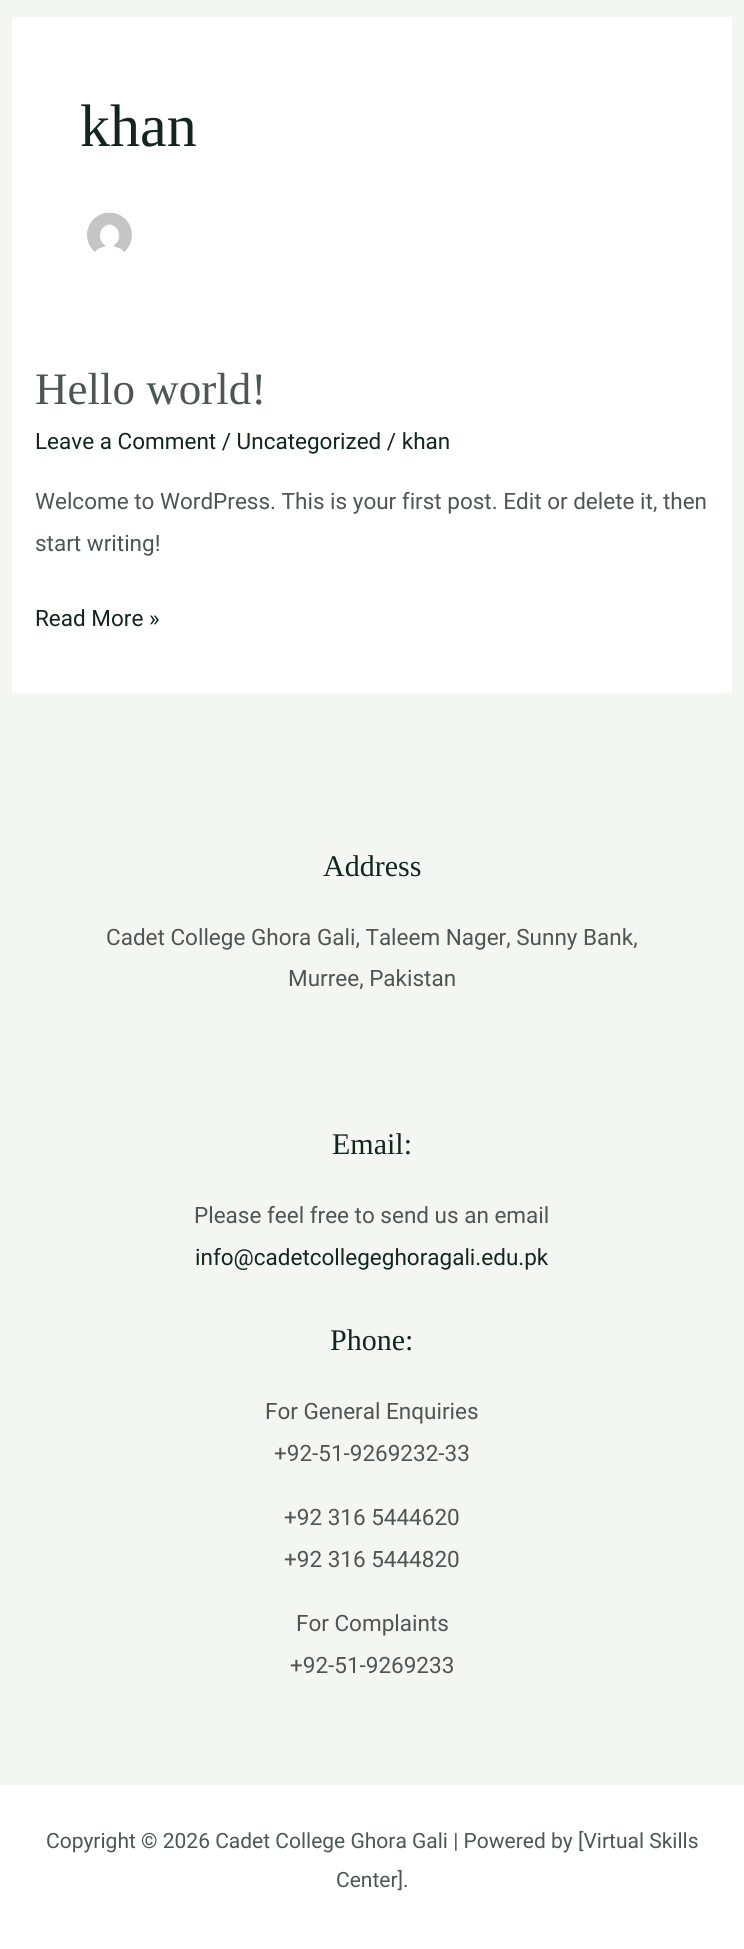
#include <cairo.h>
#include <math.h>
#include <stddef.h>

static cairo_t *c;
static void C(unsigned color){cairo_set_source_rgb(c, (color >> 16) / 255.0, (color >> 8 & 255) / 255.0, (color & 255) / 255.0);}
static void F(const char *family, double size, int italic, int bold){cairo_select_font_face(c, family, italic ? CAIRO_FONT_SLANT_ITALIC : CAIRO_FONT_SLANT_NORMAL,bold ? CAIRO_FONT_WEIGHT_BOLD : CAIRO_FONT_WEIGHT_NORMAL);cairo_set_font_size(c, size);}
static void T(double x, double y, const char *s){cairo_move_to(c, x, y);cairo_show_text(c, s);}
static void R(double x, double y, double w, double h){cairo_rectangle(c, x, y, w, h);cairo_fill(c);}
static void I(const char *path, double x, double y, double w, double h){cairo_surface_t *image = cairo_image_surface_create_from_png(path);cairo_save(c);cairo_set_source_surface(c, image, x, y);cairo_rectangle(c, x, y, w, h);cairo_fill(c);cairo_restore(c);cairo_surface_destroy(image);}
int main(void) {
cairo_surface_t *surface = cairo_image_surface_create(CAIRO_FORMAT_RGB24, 744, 1949);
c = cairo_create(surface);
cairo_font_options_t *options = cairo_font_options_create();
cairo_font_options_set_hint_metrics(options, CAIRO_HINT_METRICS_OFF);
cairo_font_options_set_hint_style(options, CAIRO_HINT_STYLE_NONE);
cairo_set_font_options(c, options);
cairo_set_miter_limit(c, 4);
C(0xf4f6f4);
cairo_paint(c);
C(0xffffff);
R(12,17,720,676);
F("Liberation Serif",60,0,0);
C(0x14261c);
T(80,146,"khan");
I("1.png",87,212,45,41);
F("Liberation Serif",45,0,0);
C(0x4e5652);
T(35,404,"Hello world!");
F("Roboto",22.5,0,0);
C(0x14261c);
T(35,449,"Leave a Comment / Uncategorized / khan");
C(0x4e5652);
T(35,509,"Welcome to WordPress. This is your first post. Edit or delete it, then");
T(35,551,"start writing!");
C(0x14261c);
T(35,626,"Read More »");
F("Liberation Serif",30,0,0);
T(323,876,"Address");
F("Roboto",22.5,0,0);
C(0x4e5652);
T(106,945,"Cadet College Ghora Gali, Taleem Nager, Sunny Bank,");
T(288,986,"Murree, Pakistan");
F("Liberation Serif",30,0,0);
C(0x14261c);
T(332,1154,"Email:");
F("Roboto",22.5,0,0);
C(0x4e5652);
T(194,1223,"Please feel free to send us an email");
C(0x14261c);
T(195,1265,"info@cadetcollegeghoragali.edu.pk");
F("Liberation Serif",30,0,0);
T(330,1350,"Phone:");
F("Roboto",22.5,0,0);
C(0x4e5652);
T(265,1419,"For General Enquiries");
T(274,1461,"+92-51-9269232-33");
T(284,1525,"+92 316 5444620");
T(284,1567,"+92 316 5444820");
T(296,1631,"For Complaints");
T(290,1673,"+92-51-9269233");
C(0xffffff);
R(0,1785,744,164);
F("Roboto",21,0,0);
C(0x4e5652);
T(46,1848,"Copyright © 2026 Cadet College Ghora Gali | Powered by [Virtual Skills");
T(336,1887,"Center].");
cairo_surface_write_to_png(surface, "o.png");
cairo_font_options_destroy(options);
cairo_destroy(c);
cairo_surface_destroy(surface);
return 0;
}
